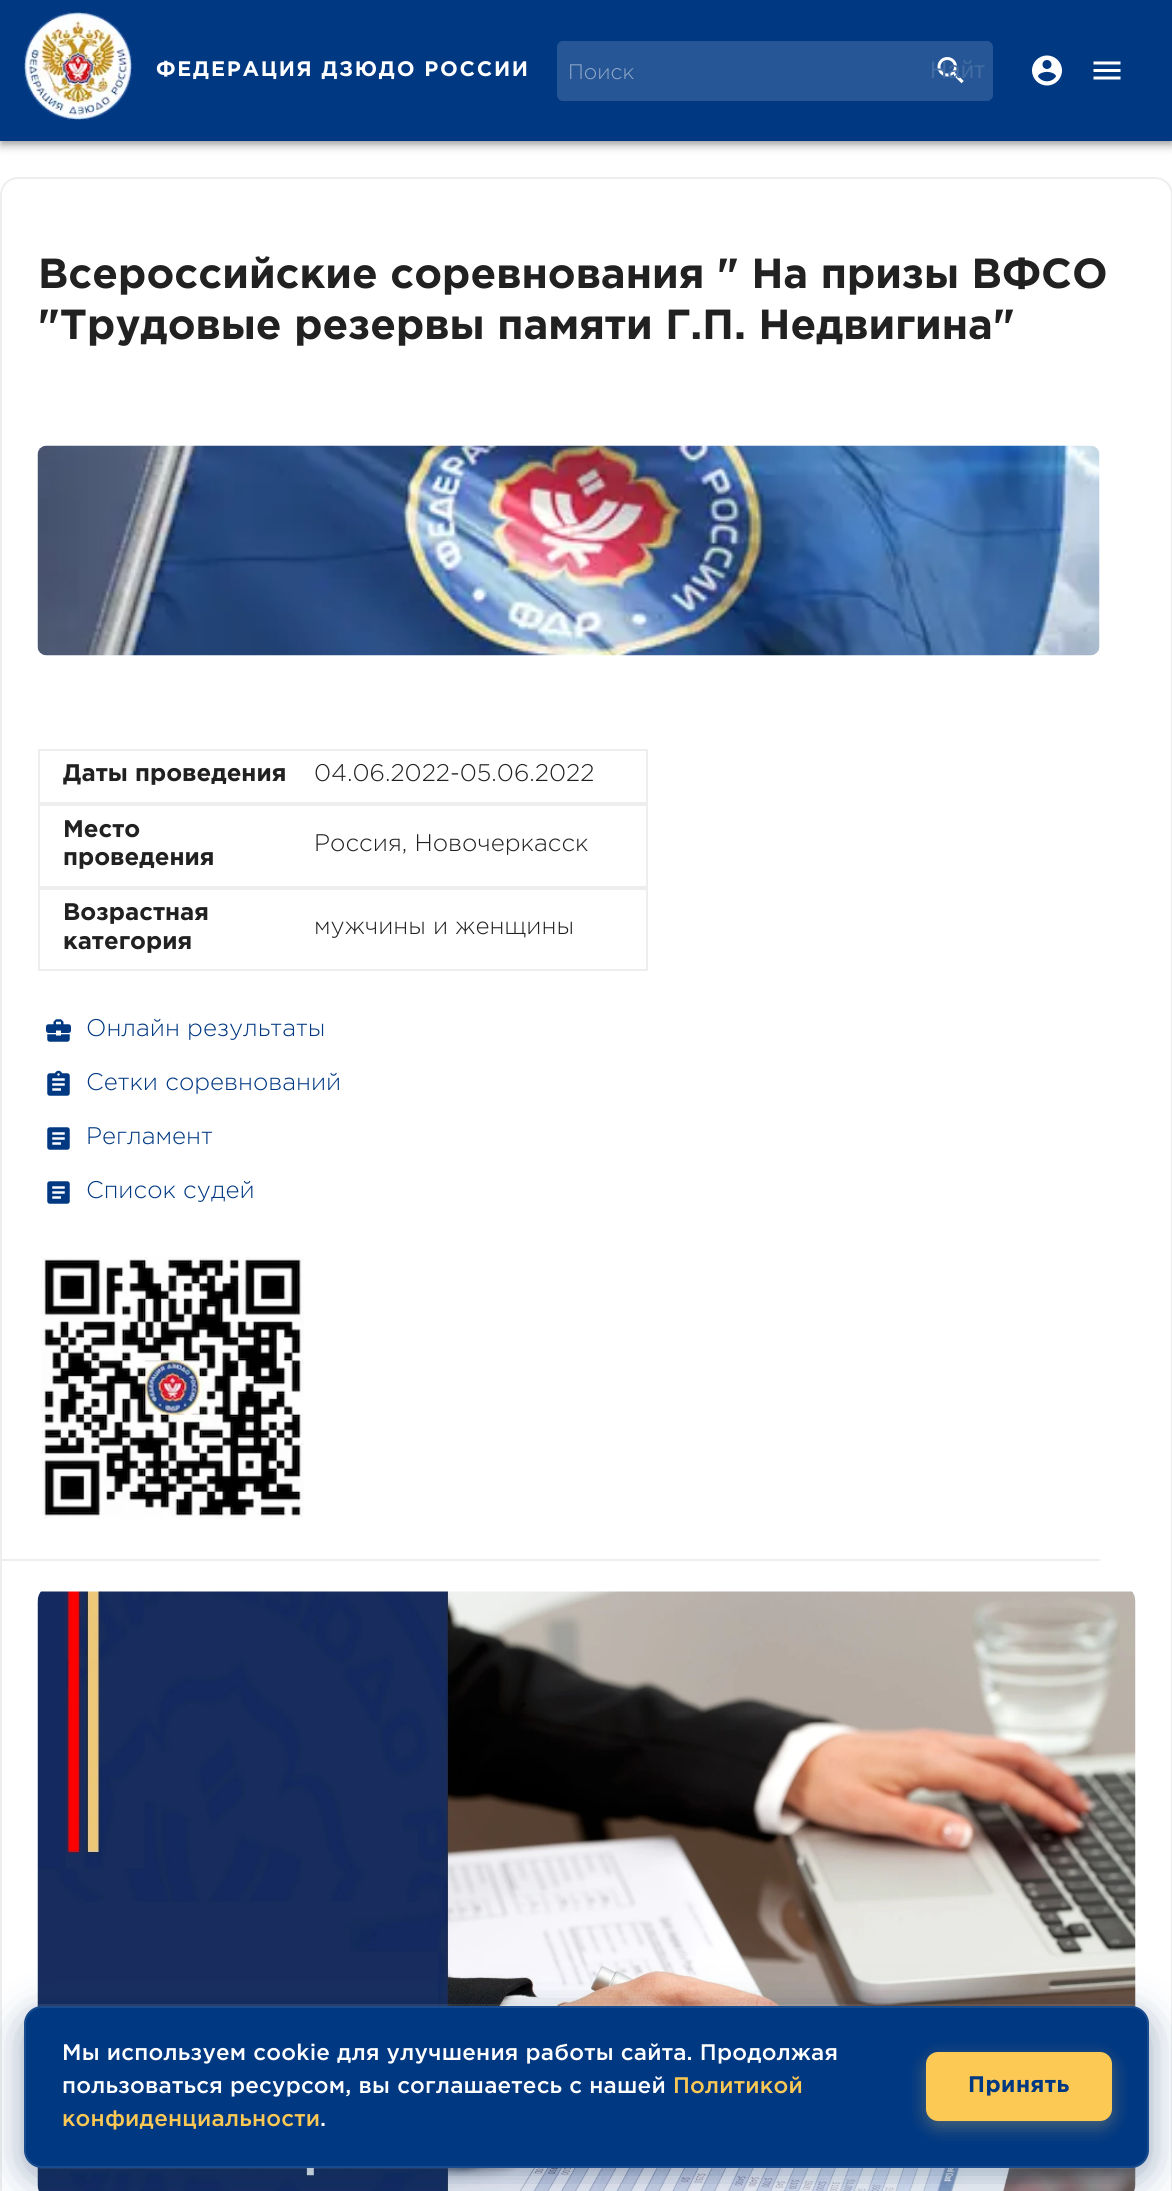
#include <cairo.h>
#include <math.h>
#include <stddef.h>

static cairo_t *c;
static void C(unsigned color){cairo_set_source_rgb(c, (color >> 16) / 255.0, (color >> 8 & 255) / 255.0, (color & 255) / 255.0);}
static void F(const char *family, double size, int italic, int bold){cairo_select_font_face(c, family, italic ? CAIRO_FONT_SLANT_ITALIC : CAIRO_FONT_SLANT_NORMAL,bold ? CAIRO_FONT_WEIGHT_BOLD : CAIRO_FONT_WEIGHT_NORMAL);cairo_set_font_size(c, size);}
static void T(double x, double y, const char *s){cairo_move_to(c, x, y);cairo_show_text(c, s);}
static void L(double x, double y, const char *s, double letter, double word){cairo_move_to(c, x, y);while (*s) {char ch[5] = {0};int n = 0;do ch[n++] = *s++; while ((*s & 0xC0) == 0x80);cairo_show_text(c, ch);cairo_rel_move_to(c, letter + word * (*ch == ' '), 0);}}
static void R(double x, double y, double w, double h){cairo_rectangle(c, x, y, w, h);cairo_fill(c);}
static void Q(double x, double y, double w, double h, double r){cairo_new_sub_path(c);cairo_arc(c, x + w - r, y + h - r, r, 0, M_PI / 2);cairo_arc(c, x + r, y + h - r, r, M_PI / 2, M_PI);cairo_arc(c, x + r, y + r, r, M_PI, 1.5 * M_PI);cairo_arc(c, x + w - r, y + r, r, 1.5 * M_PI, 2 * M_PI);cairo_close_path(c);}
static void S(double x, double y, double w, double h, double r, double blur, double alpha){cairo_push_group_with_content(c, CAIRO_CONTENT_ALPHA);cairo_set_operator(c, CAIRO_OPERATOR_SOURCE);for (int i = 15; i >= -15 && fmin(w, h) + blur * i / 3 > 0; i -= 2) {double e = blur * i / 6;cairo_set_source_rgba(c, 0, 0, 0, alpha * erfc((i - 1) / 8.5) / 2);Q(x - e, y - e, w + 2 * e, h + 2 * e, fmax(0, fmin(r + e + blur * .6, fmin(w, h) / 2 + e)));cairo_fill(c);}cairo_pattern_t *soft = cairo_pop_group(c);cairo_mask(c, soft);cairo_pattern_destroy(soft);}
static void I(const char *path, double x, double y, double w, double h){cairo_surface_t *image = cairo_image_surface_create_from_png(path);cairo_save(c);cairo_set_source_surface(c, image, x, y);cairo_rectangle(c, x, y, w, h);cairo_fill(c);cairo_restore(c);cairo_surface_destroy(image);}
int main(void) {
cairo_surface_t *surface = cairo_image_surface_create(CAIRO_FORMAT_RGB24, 1172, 2191);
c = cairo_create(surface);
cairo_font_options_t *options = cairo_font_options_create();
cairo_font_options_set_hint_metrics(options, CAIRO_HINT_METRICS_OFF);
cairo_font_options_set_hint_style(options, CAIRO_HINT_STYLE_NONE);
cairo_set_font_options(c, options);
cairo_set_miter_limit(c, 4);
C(0xffffff);
cairo_paint(c);
C(0x000000);
S(0,2,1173,141,0,7.5,.12);
S(0,6,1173,141,0,4,.14);
S(2,5,1170,138,0,3,.2);
C(0x003882);
R(0,0,1172,141);
I("1.png",24,12,108,108);
F("Gotham",21,0,1);
C(0xffffff);
L(156,76,"ФЕДЕРАЦИЯ ДЗЮДО РОССИИ",1.7,0);
C(0x265695);
Q(557,41,436,60,6);
cairo_fill(c);
I("2.png",937,57,27,27);
F("Gotham Light",21,0,0);
C(0x93abca);
T(568,79,"Поиск");
F("Liberation Sans",24,0,0);
C(0x426ca3);
T(930,78,"Найт");
I("3.png",1032,55,30,31);
I("4.png",1093,61,28,19);
Q(1,178,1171,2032,17);
C(0xeeeeee);
cairo_stroke(c);
F("Gotham",42,0,1);
C(0x212121);
T(38,288,"Всероссийские соревнования \" На призы ВФСО");
T(38,339,"\"Трудовые резервы памяти Г.П. Недвигина\"");
C(0xeeeeee);
R(2,1559,1098,2);
I("5.png",37,445,1063,211);
cairo_rectangle(c,39,750,608,53);
cairo_stroke(c);
F("Gotham",24,0,1);
C(0x212121);
T(63,781,"Даты проведения");
F("Gotham Light",24,0,0);
T(314,781,"04.06.2022-05.06.2022");
cairo_rectangle(c,39,805,608,82);
C(0xeeeeee);
cairo_stroke(c);
F("Gotham",24,0,1);
C(0x212121);
T(63,837,"Место");
T(63,865,"проведения");
F("Gotham Light",24,0,0);
T(314,851,"Россия, Новочеркасск");
cairo_rectangle(c,39,889,608,81);
C(0xeeeeee);
cairo_stroke(c);
F("Gotham",24,0,1);
C(0x212121);
T(63,920,"Возрастная");
T(63,949,"категория");
F("Gotham Light",24,0,0);
T(314,934,"мужчины и женщины");
I("6.png",46,1019,25,23);
C(0x003882);
T(86,1036,"Онлайн результаты");
I("7.png",47,1070,23,26);
T(86,1090,"Сетки соревнований");
I("8.png",47,1127,23,23);
T(86,1144,"Регламент");
I("8.png",47,1181,23,23);
T(86,1198,"Список судей");
I("9.png",41,1257,263,262);
I("10.png",37,1591,1099,600);
Q(24,2005,1126,163,19);
cairo_set_source_rgba(c,1,1,1,0.1);
cairo_stroke(c);
C(0x000000);
S(24,2012,1125,162,18,12,.15);
C(0x003882);
S(24,2018,1125,162,18,24,.3);
C(0x003882);
Q(24,2006,1125,162,18);
cairo_fill(c);
Q(25,2007,1123,160,17);
cairo_set_source_rgba(c,1,1,1,0.1);
cairo_stroke(c);
F("Gotham Medium",22.5,0,0);
C(0xffffff);
L(62,2060,"Мы используем cookie для улучшения работы сайта. Продолжая",.22,0);
L(62,2093,"пользоваться ресурсом, вы соглашаетесь с нашей",.22,0);
C(0xfcc954);
L(673,2093,"Политикой",.22,0);
L(62,2126,"конфиденциальности",.22,0);
C(0xffffff);
L(320,2126,".",.22,0);
C(0xfcc954);
S(926,2058,186,69,12,9,.3);
C(0xfcc954);
Q(926,2052,186,69,12);
cairo_fill(c);
F("Gotham",22.5,0,1);
C(0x003882);
L(968,2092,"Принять",.5,0);
cairo_surface_write_to_png(surface, "o.png");
cairo_font_options_destroy(options);
cairo_destroy(c);
cairo_surface_destroy(surface);
return 0;
}
